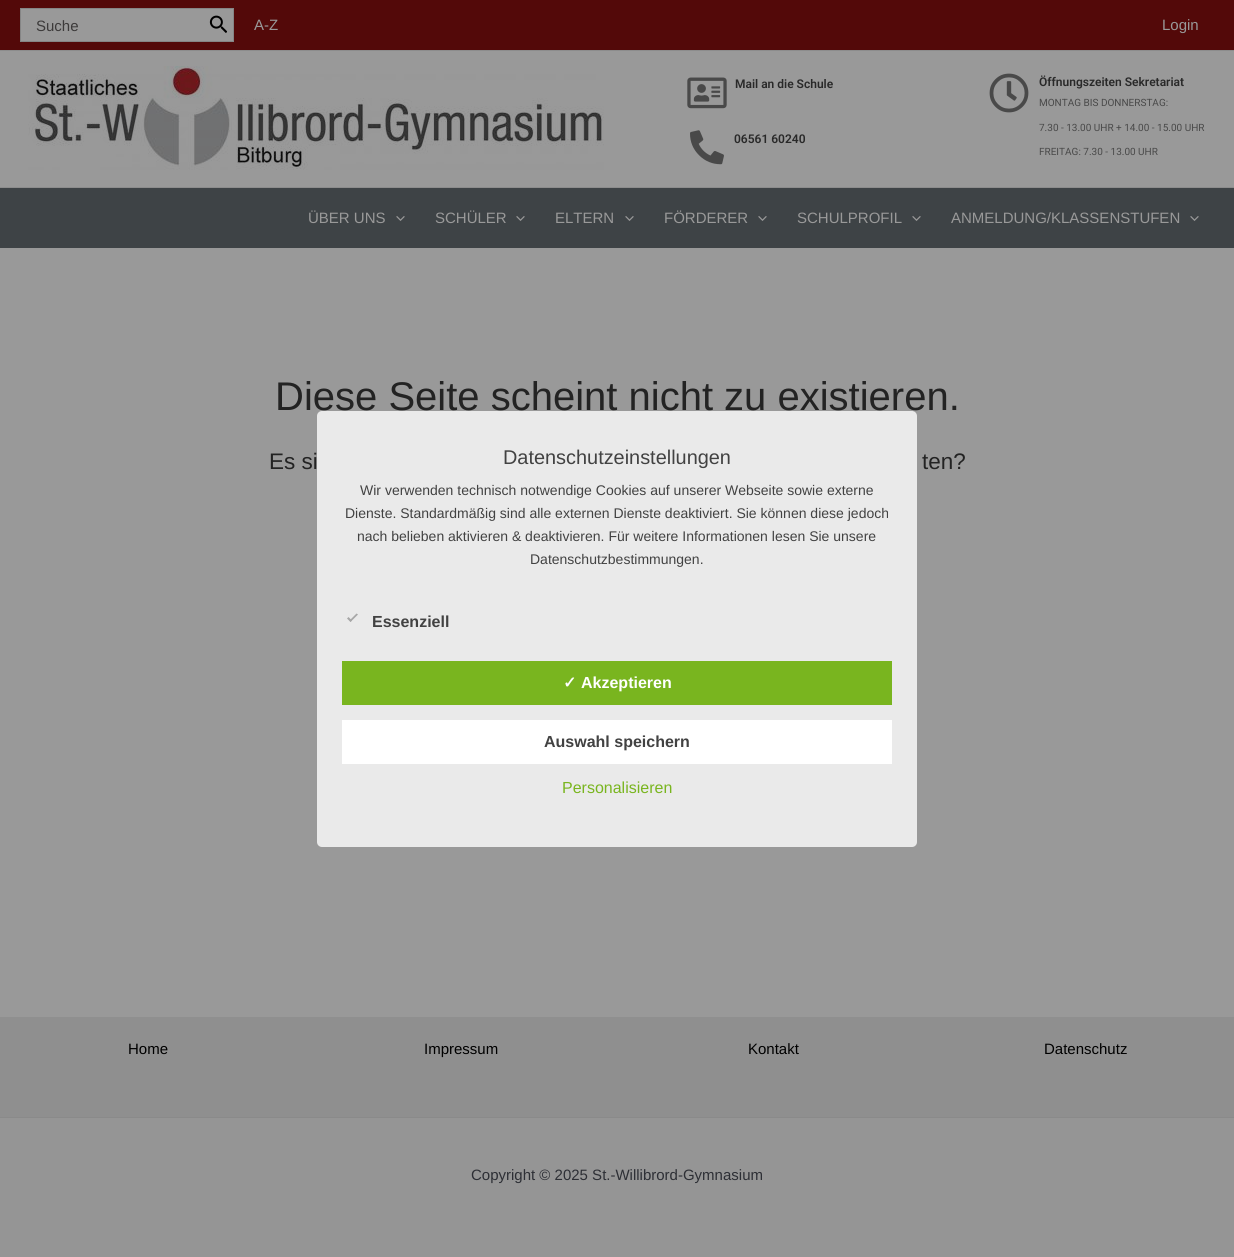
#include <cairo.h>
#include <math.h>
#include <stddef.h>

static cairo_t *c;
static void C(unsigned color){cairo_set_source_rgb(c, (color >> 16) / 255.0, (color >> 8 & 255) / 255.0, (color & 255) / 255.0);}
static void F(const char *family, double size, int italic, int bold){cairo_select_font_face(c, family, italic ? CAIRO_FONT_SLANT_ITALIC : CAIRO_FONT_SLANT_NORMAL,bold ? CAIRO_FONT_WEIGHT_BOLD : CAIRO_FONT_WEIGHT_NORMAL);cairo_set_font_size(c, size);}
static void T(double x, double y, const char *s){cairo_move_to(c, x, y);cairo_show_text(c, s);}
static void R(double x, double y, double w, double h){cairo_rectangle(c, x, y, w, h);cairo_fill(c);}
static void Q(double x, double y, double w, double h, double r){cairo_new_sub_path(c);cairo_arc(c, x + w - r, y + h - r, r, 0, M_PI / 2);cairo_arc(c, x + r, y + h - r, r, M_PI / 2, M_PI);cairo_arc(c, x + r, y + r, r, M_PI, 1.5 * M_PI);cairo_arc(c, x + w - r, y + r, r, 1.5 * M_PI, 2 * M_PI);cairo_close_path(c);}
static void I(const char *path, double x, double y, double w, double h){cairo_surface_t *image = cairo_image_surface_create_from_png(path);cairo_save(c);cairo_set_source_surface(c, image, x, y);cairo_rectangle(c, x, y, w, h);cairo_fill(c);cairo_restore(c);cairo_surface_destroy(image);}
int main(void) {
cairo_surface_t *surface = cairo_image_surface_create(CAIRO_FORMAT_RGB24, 1234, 1257);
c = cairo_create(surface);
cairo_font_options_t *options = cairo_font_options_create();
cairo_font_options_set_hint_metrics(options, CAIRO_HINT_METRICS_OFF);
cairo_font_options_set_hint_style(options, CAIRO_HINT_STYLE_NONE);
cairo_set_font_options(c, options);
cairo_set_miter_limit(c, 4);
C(0x999999);
cairo_paint(c);
C(0x530909);
R(0,0,1234,50);
C(0x8c8c8c);
R(0,50,1234,1);
C(0x999999);
cairo_rectangle(c,20.5,8.5,213,33);
cairo_fill_preserve(c);
C(0x858585);
cairo_set_line_width(c,1);
cairo_stroke(c);
F("Liberation Sans",15,0,0);
C(0x3c3a3a);
T(36,31,"Suche");
I("1.png",209,15,18,18);
C(0x999999);
T(254,30,"A-Z");
T(1162,30,"Login");
C(0x8c8c8c);
R(0,187,1234,1);
I("2.png",28,66,576,104);
I("3.png",687,77,40,32);
F("Roboto SemiBold",12,0,0);
C(0x292929);
T(735,88,"Mail an die Schule");
I("4.png",690,130,34,35);
T(734,143,"06561 60240");
I("5.png",989,73,40,40);
T(1039,86,"Öffnungszeiten Sekretariat");
F("Roboto",10,0,0);
C(0x494949);
T(1039,106,"MONTAG BIS DONNERSTAG:");
T(1039,131,"7.30 - 13.00 UHR + 14.00 - 15.00 UHR");
T(1039,155,"FREITAG: 7.30 - 13.00 UHR");
C(0x3e4346);
R(0,188,1234,60);
F("Liberation Sans",15,0,0);
C(0x999999);
T(308,223,"ÜBER UNS");
I("6.png",396,216,9,5);
T(435,223,"SCHÜLER");
I("6.png",516,216,9,5);
T(555,223,"ELTERN");
I("6.png",625,216,9,5);
T(664,223,"FÖRDERER");
I("6.png",758,216,9,5);
T(797,223,"SCHULPROFIL");
I("6.png",912,216,9,5);
T(951,223,"ANMELDUNG/KLASSENSTUFEN");
I("6.png",1190,216,9,5);
F("Liberation Sans",40,0,0);
C(0x232323);
T(275,410,"Diese Seite scheint nicht zu existieren.");
F("Liberation Sans",22.5,0,0);
T(269,469,"Es si");
T(922,469,"ten?");
C(0x8f8f8f);
R(0,1017,1234,100);
F("Liberation Sans",15,0,0);
C(0x000000);
T(128,1054,"Home");
T(424,1054,"Impressum");
T(748,1054,"Kontakt");
T(1044,1054,"Datenschutz");
C(0x959595);
R(0,1118,1234,139);
C(0x8a8a8a);
R(0,1117,1234,1);
C(0x2d2f35);
T(471,1180,"Copyright © 2025 St.-Willibrord-Gymnasium");
C(0xeaeaea);
Q(317,411,600,436,5);
cairo_fill(c);
F("Liberation Sans",19.9,0,0);
C(0x424242);
T(503,464,"Datenschutzeinstellungen");
F("Liberation Sans",14,0,0);
T(360,495,"Wir verwenden technisch notwendige Cookies auf unserer Webseite sowie externe");
T(345,518,"Dienste. Standardmäßig sind alle externen Dienste deaktiviert. Sie können diese jedoch");
T(357,541,"nach belieben aktivieren & deaktivieren. Für weitere Informationen lesen Sie unsere");
T(530,564,"Datenschutzbestimmungen.");
C(0xa7a7a7);
cairo_new_path(c);
cairo_move_to(c,356.5,613.5);
cairo_line_to(c,358,614.5);
cairo_line_to(c,350.5,622);
cairo_line_to(c,349.5,620.5);
cairo_close_path(c);
cairo_fill(c);
cairo_new_path(c);
cairo_move_to(c,348.5,617);
cairo_line_to(c,352,620.5);
cairo_line_to(c,350.5,622);
cairo_line_to(c,347,618.5);
cairo_close_path(c);
cairo_fill(c);
F("Liberation Sans",16,0,1);
C(0x424242);
T(372,627,"Essenziell");
C(0x79b51f);
R(342,661,550,44);
F("DejaVu Sans",16,0,1);
C(0xffffff);
T(563,688,"✓");
F("Liberation Sans",16,0,1);
T(581,688,"Akzeptieren");
R(342,720,550,44);
C(0x424242);
T(544,747,"Auswahl speichern");
F("Liberation Sans",16,0,0);
C(0x79b51f);
T(562,793,"Personalisieren");
cairo_surface_write_to_png(surface, "o.png");
cairo_font_options_destroy(options);
cairo_destroy(c);
cairo_surface_destroy(surface);
return 0;
}
